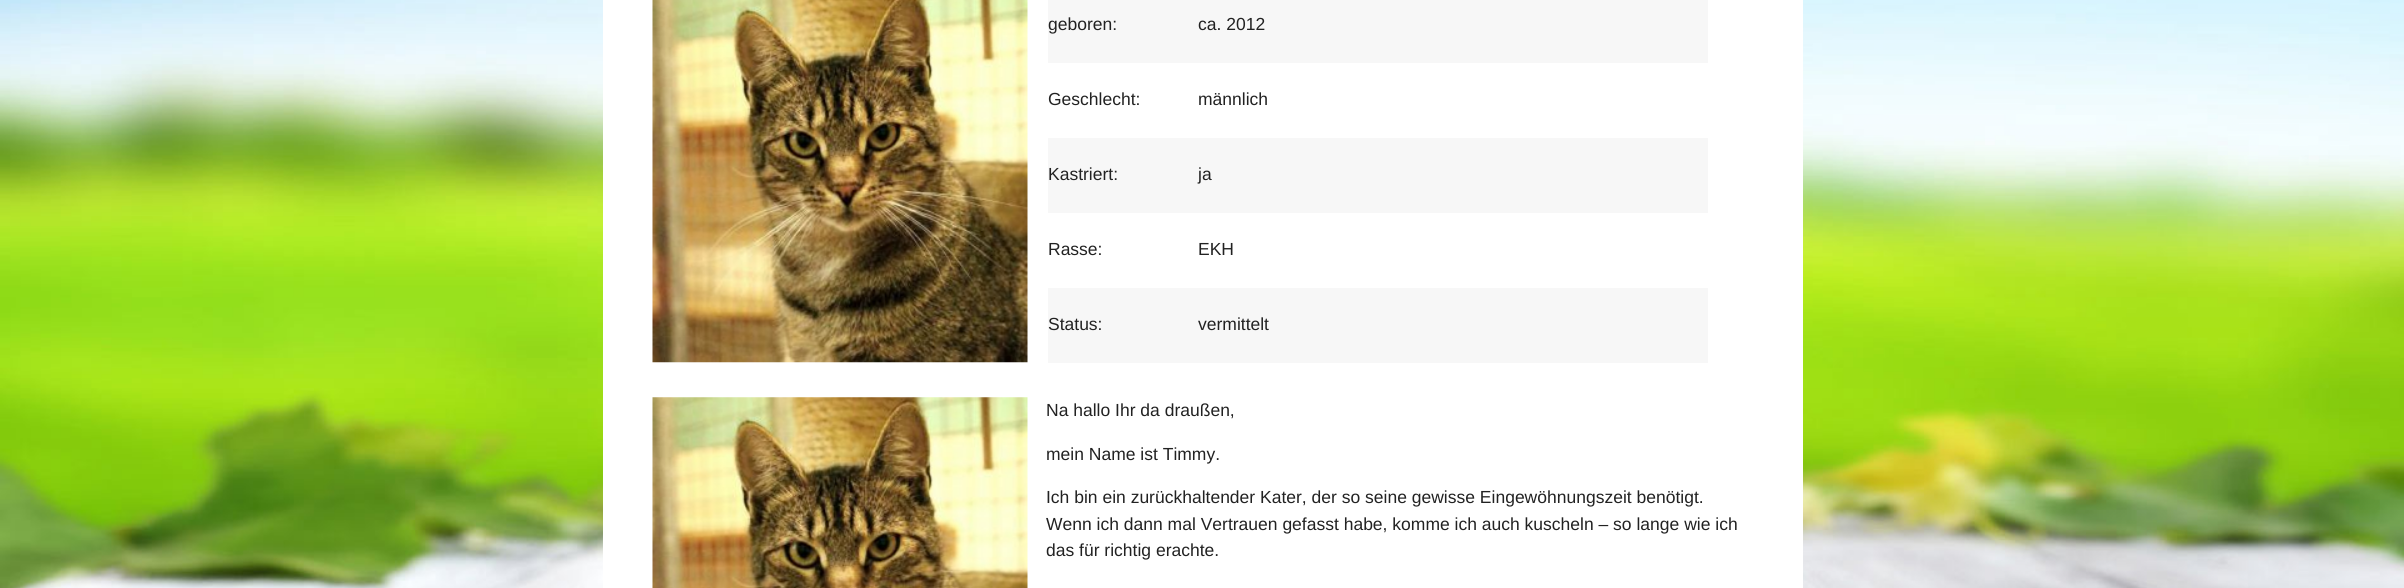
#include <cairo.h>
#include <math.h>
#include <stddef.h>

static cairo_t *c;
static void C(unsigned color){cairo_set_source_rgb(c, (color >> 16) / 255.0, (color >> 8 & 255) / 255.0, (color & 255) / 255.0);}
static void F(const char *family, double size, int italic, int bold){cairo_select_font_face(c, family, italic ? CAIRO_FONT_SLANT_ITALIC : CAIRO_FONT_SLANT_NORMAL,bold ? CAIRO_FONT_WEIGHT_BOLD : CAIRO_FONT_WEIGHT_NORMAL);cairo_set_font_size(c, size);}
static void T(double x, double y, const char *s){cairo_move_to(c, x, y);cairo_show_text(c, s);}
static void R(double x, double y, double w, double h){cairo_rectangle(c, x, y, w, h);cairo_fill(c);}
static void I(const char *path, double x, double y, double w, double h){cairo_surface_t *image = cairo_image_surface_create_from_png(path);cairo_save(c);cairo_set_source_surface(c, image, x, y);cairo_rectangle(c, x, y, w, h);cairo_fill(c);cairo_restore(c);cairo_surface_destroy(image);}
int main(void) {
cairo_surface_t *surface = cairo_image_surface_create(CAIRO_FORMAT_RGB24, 2404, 588);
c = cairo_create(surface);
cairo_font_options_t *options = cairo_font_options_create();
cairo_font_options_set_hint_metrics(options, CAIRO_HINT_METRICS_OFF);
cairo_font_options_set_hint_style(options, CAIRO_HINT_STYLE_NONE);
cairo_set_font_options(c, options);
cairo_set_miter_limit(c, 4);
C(0xffffff);
cairo_paint(c);
I("1.png",0,0,2404,588);
C(0xffffff);
R(603,0,1200,588);
I("2.png",652,0,376,363);
C(0xf7f7f7);
R(1048,0,660,63);
F("Liberation Sans",17.5,0,0);
C(0x222222);
T(1048,30,"geboren:");
T(1198,30,"ca. 2012");
T(1048,105,"Geschlecht:");
T(1198,105,"männlich");
C(0xf7f7f7);
R(1048,138,660,75);
C(0x222222);
T(1048,180,"Kastriert:");
T(1198,180,"ja");
T(1048,255,"Rasse:");
T(1198,255,"EKH");
C(0xf7f7f7);
R(1048,288,660,75);
C(0x222222);
T(1048,330,"Status:");
T(1198,330,"vermittelt");
I("3.png",652,397,376,191);
T(1046,416,"Na hallo Ihr da draußen,");
T(1046,460,"mein Name ist Timmy.");
T(1046,503,"Ich bin ein zurückhaltender Kater, der so seine gewisse Eingewöhnungszeit benötigt.");
T(1046,530,"Wenn ich dann mal Vertrauen gefasst habe, komme ich auch kuscheln – so lange wie ich");
T(1046,556,"das für richtig erachte.");
cairo_surface_write_to_png(surface, "o.png");
cairo_font_options_destroy(options);
cairo_destroy(c);
cairo_surface_destroy(surface);
return 0;
}
